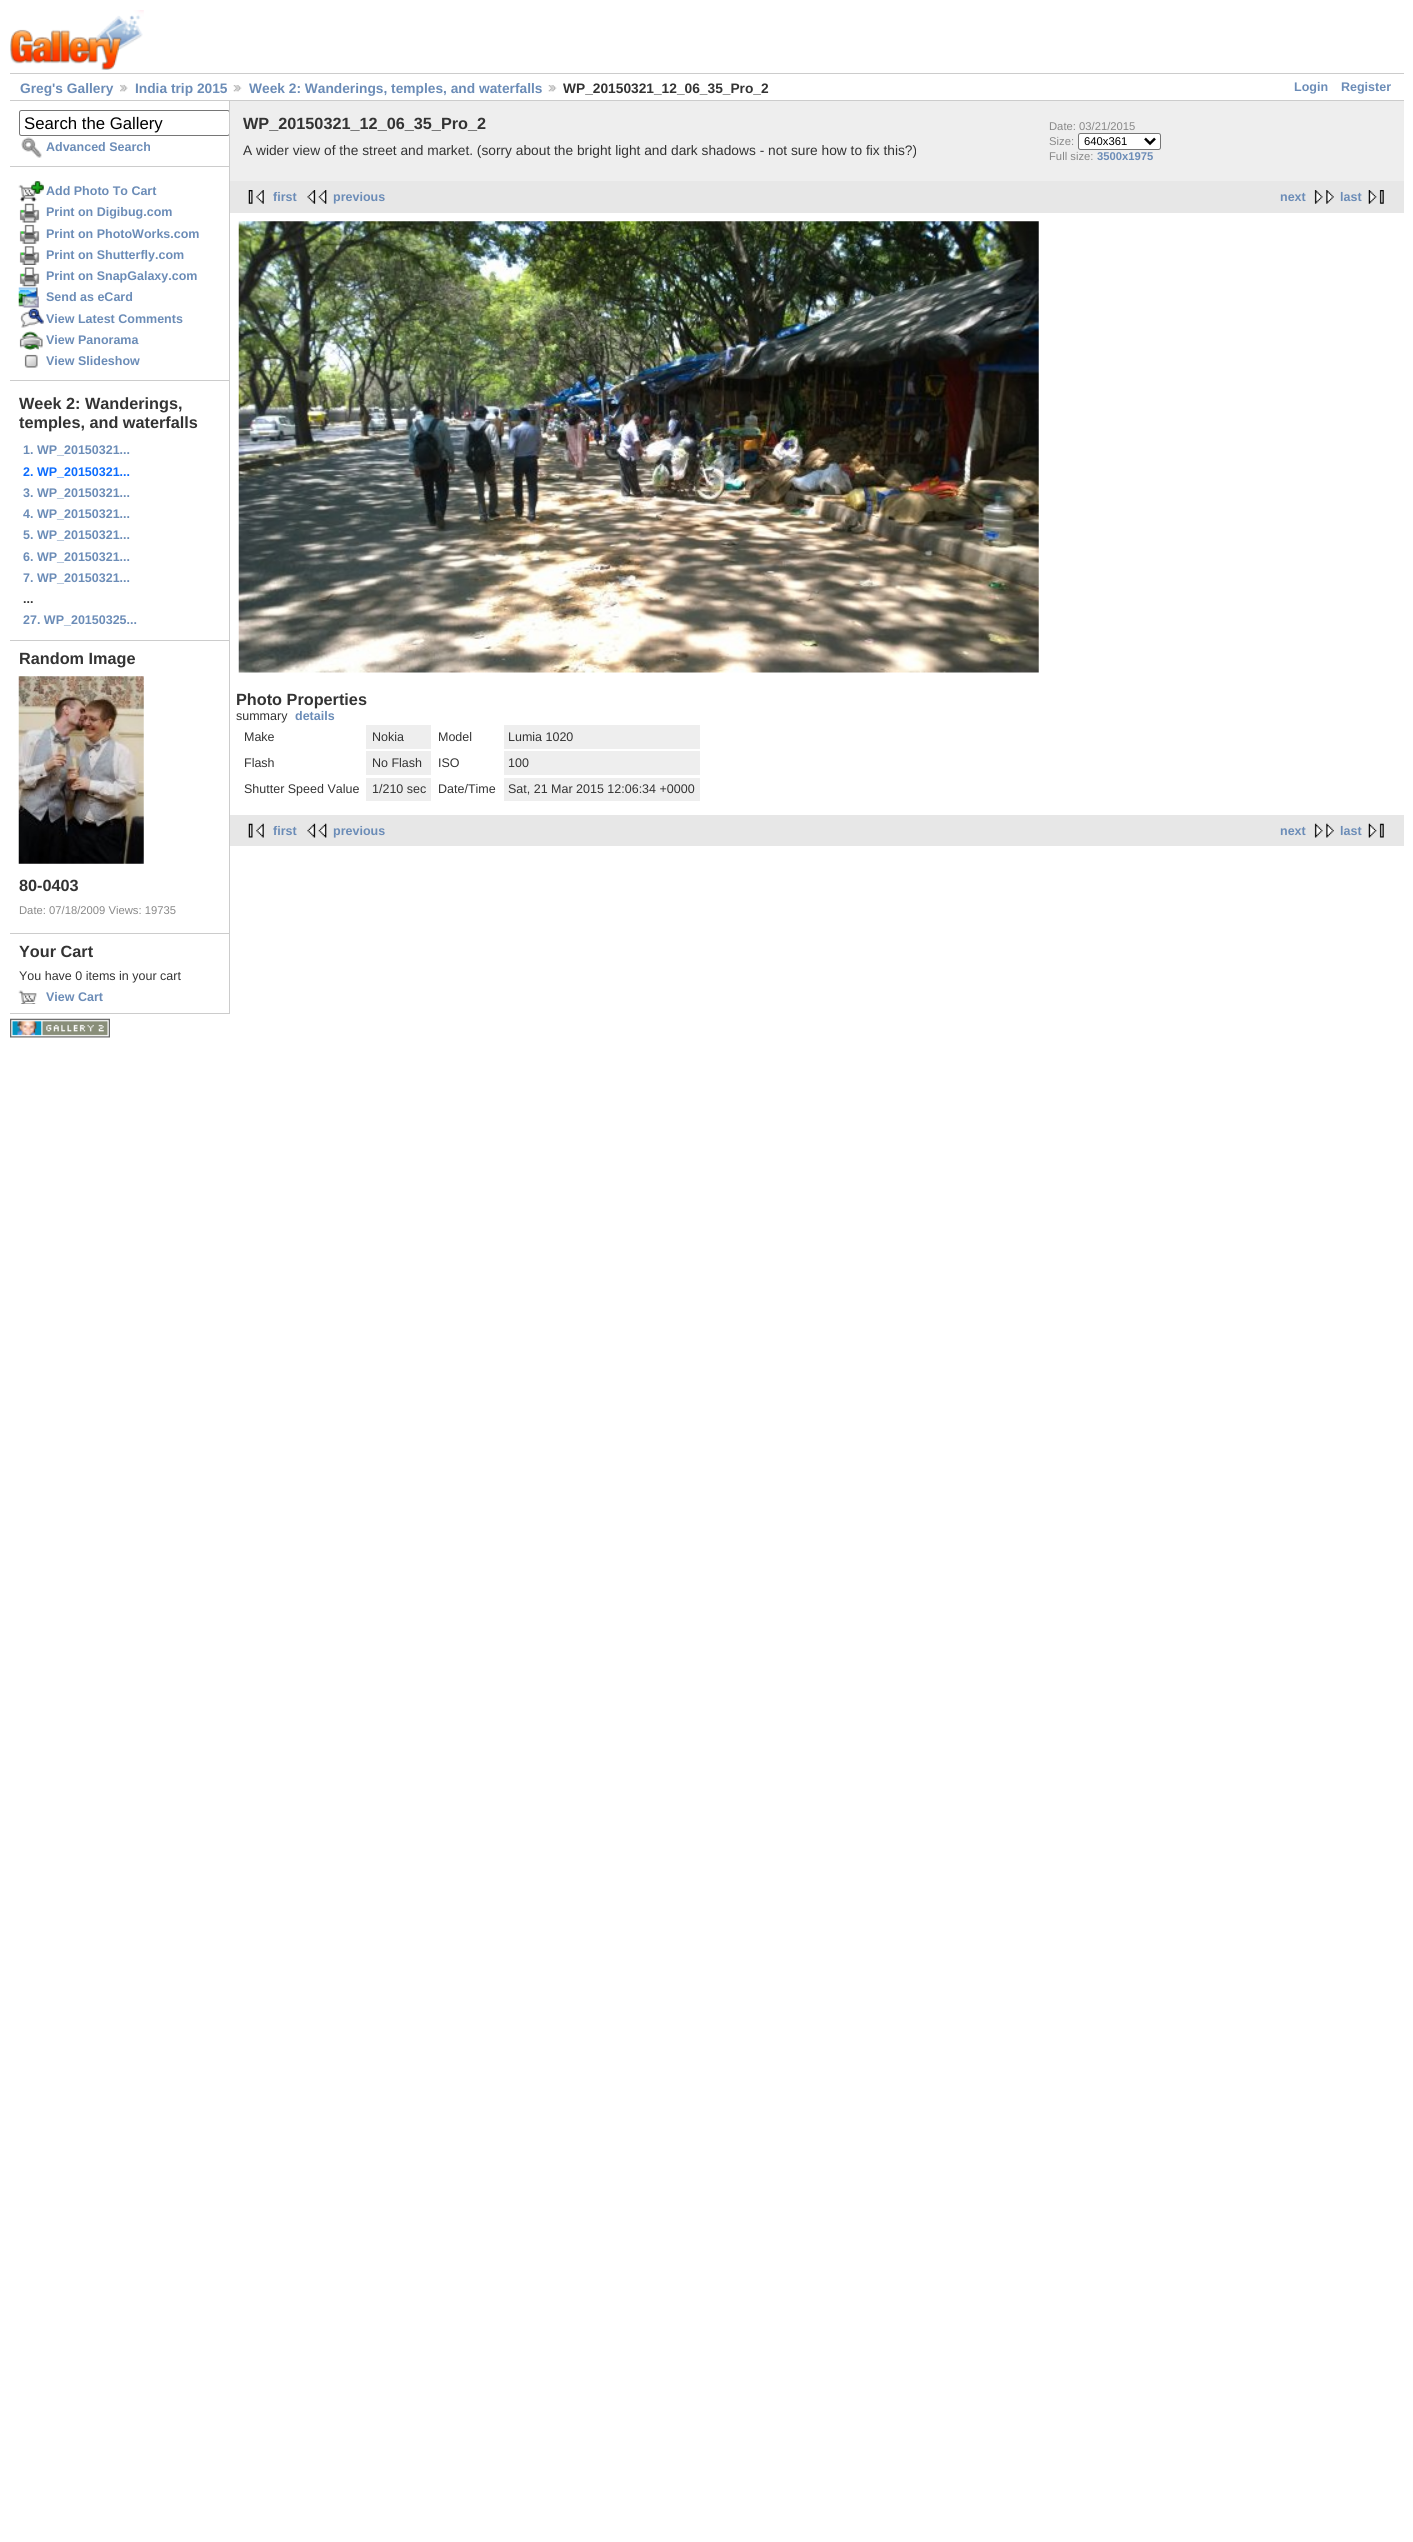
#include <cairo.h>
#include <math.h>
#include <stddef.h>

static cairo_t *c;
static void C(unsigned color){cairo_set_source_rgb(c, (color >> 16) / 255.0, (color >> 8 & 255) / 255.0, (color & 255) / 255.0);}
static void F(const char *family, double size, int italic, int bold){cairo_select_font_face(c, family, italic ? CAIRO_FONT_SLANT_ITALIC : CAIRO_FONT_SLANT_NORMAL,bold ? CAIRO_FONT_WEIGHT_BOLD : CAIRO_FONT_WEIGHT_NORMAL);cairo_set_font_size(c, size);}
static void T(double x, double y, const char *s){cairo_move_to(c, x, y);cairo_show_text(c, s);}
static void R(double x, double y, double w, double h){cairo_rectangle(c, x, y, w, h);cairo_fill(c);}
static void Q(double x, double y, double w, double h, double r){cairo_new_sub_path(c);cairo_arc(c, x + w - r, y + h - r, r, 0, M_PI / 2);cairo_arc(c, x + r, y + h - r, r, M_PI / 2, M_PI);cairo_arc(c, x + r, y + r, r, M_PI, 1.5 * M_PI);cairo_arc(c, x + w - r, y + r, r, 1.5 * M_PI, 2 * M_PI);cairo_close_path(c);}
static void I(const char *path, double x, double y, double w, double h){cairo_surface_t *image = cairo_image_surface_create_from_png(path);cairo_save(c);cairo_set_source_surface(c, image, x, y);cairo_rectangle(c, x, y, w, h);cairo_fill(c);cairo_restore(c);cairo_surface_destroy(image);}
int main(void) {
cairo_surface_t *surface = cairo_image_surface_create(CAIRO_FORMAT_RGB24, 1413, 2542);
c = cairo_create(surface);
cairo_font_options_t *options = cairo_font_options_create();
cairo_font_options_set_hint_metrics(options, CAIRO_HINT_METRICS_OFF);
cairo_font_options_set_hint_style(options, CAIRO_HINT_STYLE_NONE);
cairo_set_font_options(c, options);
cairo_set_miter_limit(c, 4);
C(0xffffff);
cairo_paint(c);
I("1.png",10,10,134,60);
C(0xcccccc);
R(10,73,1394,1);
R(10,100,1394,1);
F("Liberation Sans",13.75,0,1);
C(0x6b8cb7);
T(20,93,"Greg's Gallery");
I("2.png",120,84,8,8);
T(135,93,"India trip 2015");
I("3.png",233,85,9,7);
T(249,93,"Week 2: Wanderings, temples, and waterfalls");
I("3.png",548,85,9,7);
C(0x333333);
T(563,93,"WP_20150321_12_06_35_Pro_2");
F("Liberation Sans",12.5,0,1);
C(0x6b8cb7);
T(1294,91,"Login");
T(1341,91,"Register");
C(0xcccccc);
R(229,101,1,913);
R(10,166,219,1);
cairo_save(c);
cairo_rectangle(c,10,101,219,913);
cairo_clip(c);
Q(19.5,110.5,210,25,2);
C(0x767676);
cairo_set_line_width(c,1);
cairo_stroke(c);
cairo_restore(c);
F("Liberation Sans",16.75,0,0);
C(0x000000);
T(24,129,"Search the Gallery");
I("4.png",21,137,21,21);
F("Liberation Sans",12.5,0,1);
C(0x6b8cb7);
T(46,151,"Advanced Search");
C(0xcccccc);
R(10,380,219,1);
I("5.png",18,181,26,21);
C(0x6b8cb7);
T(46,195,"Add Photo To Cart");
I("6.png",19,203,21,20);
T(46,216,"Print on Digibug.com");
I("7.png",19,224,21,20);
T(46,238,"Print on PhotoWorks.com");
I("8.png",19,246,21,19);
T(46,259,"Print on Shutterfly.com");
I("9.png",19,267,21,20);
T(46,280,"Print on SnapGalaxy.com");
I("10.png",18,287,21,21);
T(46,301,"Send as eCard");
I("11.png",20,308,24,20);
T(46,323,"View Latest Comments");
I("12.png",19,331,24,19);
T(46,344,"View Panorama");
I("13.png",24,354,14,14);
T(46,365,"View Slideshow");
C(0xcccccc);
R(10,640,219,1);
F("Liberation Sans",16.25,0,1);
C(0x333333);
T(19,409,"Week 2: Wanderings,");
T(19,428,"temples, and waterfalls");
F("Liberation Sans",12.5,0,1);
C(0x6b8cb7);
T(23,454,"1. WP_20150321...");
C(0x0b6cff);
T(23,476,"2. WP_20150321...");
C(0x6b8cb7);
T(23,497,"3. WP_20150321...");
T(23,518,"4. WP_20150321...");
T(23,539,"5. WP_20150321...");
T(23,561,"6. WP_20150321...");
T(23,582,"7. WP_20150321...");
C(0x333333);
T(23,603,"...");
C(0x6b8cb7);
T(23,624,"27. WP_20150325...");
C(0xcccccc);
R(10,933,219,1);
F("Liberation Sans",16.25,0,1);
C(0x333333);
T(19,664,"Random Image");
I("14.png",18,676,126,188);
T(19,891,"80-0403");
F("Liberation Sans",11.25,0,0);
C(0x888888);
T(19,914,"Date: 07/18/2009 Views: 19735");
C(0xcccccc);
R(10,1013,219,1);
F("Liberation Sans",16.25,0,1);
C(0x333333);
T(19,957,"Your Cart");
F("Liberation Sans",12.5,0,0);
T(19,980,"You have 0 items in your cart");
I("15.png",18,990,19,14);
F("Liberation Sans",12.5,0,1);
C(0x6b8cb7);
T(46,1001,"View Cart");
C(0xeeeeee);
R(230,101,1174,80);
F("Liberation Sans",16.25,0,1);
C(0x333333);
T(243,129,"WP_20150321_12_06_35_Pro_2");
F("Liberation Sans",13.75,0,0);
T(243,155,"A wider view of the street and market. (sorry about the bright light and dark shadows - not sure how to fix this?)");
F("Liberation Sans",11.25,0,0);
C(0x888888);
T(1049,130,"Date: 03/21/2015");
T(1049,145,"Size:");
C(0xffffff);
Q(1078.5,133.5,82,16,2);
cairo_fill_preserve(c);
C(0x767676);
cairo_set_line_width(c,1);
cairo_stroke(c);
cairo_new_path(c);
cairo_move_to(c,1145,138.5);
cairo_line_to(c,1150,143.5);
cairo_line_to(c,1155,138.5);
C(0x000000);
cairo_set_line_width(c,2.5);
cairo_stroke(c);
T(1084,145,"640x361");
C(0x888888);
T(1049,160,"Full size:");
F("Liberation Sans",11.25,0,1);
C(0x6b8cb7);
T(1097,160,"3500x1975");
C(0xe7e7e7);
R(230,181,1174,32);
I("16.png",248,190,16,14);
F("Liberation Sans",12.5,0,1);
C(0x6b8cb7);
T(273,201,"first");
I("17.png",307,190,20,14);
T(333,201,"previous");
T(1280,201,"next");
I("18.png",1314,190,20,14);
T(1340,201,"last");
I("19.png",1368,190,16,14);
I("20.png",238,221,801,452);
F("Liberation Sans",16.25,0,1);
C(0x333333);
T(236,705,"Photo Properties");
F("Liberation Sans",12.5,0,0);
T(236,720,"summary");
F("Liberation Sans",12.5,0,1);
C(0x6b8cb7);
T(295,720,"details");
F("Liberation Sans",12.5,0,0);
C(0x333333);
T(244,741,"Make");
C(0xeeeeee);
R(366,725,65,24);
C(0x333333);
T(372,741,"Nokia");
T(438,741,"Model");
C(0xeeeeee);
R(504,725,196,24);
C(0x333333);
T(508,741,"Lumia 1020");
T(244,767,"Flash");
C(0xeeeeee);
R(366,751,65,24);
C(0x333333);
T(372,767,"No Flash");
T(438,767,"ISO");
C(0xeeeeee);
R(504,751,196,24);
C(0x333333);
T(508,767,"100");
T(244,793,"Shutter Speed Value");
C(0xeeeeee);
R(366,778,65,23);
C(0x333333);
T(372,793,"1/210 sec");
T(438,793,"Date/Time");
C(0xeeeeee);
R(504,778,196,23);
C(0x333333);
T(508,793,"Sat, 21 Mar 2015 12:06:34 +0000");
C(0xe7e7e7);
R(230,815,1174,31);
I("21.png",248,823,16,15);
F("Liberation Sans",12.5,0,1);
C(0x6b8cb7);
T(273,835,"first");
I("22.png",307,823,20,15);
T(333,835,"previous");
T(1280,835,"next");
I("23.png",1314,823,20,15);
T(1340,835,"last");
I("24.png",1368,823,16,15);
I("25.png",10,1018,100,20);
cairo_surface_write_to_png(surface, "o.png");
cairo_font_options_destroy(options);
cairo_destroy(c);
cairo_surface_destroy(surface);
return 0;
}
